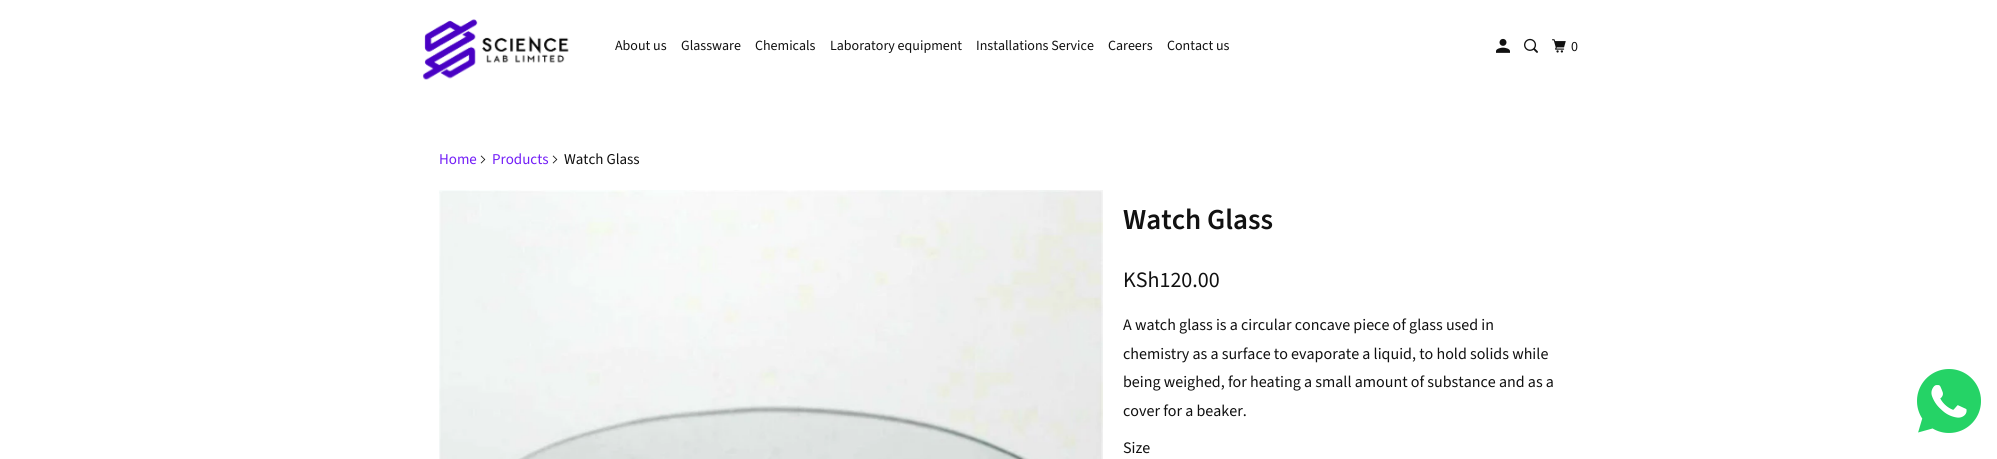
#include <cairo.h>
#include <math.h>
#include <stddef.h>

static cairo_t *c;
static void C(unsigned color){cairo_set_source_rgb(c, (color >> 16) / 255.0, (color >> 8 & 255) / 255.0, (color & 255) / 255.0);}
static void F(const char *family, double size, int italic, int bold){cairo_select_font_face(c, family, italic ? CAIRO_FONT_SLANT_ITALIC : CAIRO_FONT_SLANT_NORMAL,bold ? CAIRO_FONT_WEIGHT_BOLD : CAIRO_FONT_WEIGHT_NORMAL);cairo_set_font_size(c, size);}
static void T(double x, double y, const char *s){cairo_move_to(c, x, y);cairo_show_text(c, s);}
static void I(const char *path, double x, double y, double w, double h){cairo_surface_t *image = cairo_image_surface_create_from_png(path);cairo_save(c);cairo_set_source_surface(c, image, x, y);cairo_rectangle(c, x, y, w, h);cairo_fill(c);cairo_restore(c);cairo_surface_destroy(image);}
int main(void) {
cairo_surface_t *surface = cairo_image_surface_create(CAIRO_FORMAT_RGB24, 1997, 459);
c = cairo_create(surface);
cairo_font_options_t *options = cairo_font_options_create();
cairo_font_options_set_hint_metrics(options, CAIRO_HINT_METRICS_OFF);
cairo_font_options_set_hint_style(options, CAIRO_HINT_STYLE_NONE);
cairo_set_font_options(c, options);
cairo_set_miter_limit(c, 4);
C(0xffffff);
cairo_paint(c);
I("1.png",422,19,147,61);
F("Source Sans Pro",14,0,0);
C(0x111111);
T(615,50,"About us");
T(681,50,"Glassware");
T(755,50,"Chemicals");
T(830,50,"Laboratory equipment");
T(976,50,"Installations Service");
T(1108,50,"Careers");
T(1167,50,"Contact us");
I("2.png",1496,38,14,15);
I("3.png",1524,38,14,15);
I("4.png",1552,39,14,14);
T(1571,51,"0");
F("Source Sans Pro",15,0,0);
C(0x721df7);
T(439,164,"Home");
I("5.png",480,155,6,9);
T(492,164,"Products");
I("5.png",552,155,6,9);
C(0x111111);
T(564,164,"Watch Glass");
I("6.png",439,190,664,269);
F("Source Sans Pro SemiBold",29,0,0);
T(1123,229,"Watch Glass");
F("Source Sans Pro",22,0,0);
T(1123,287,"KSh120.00");
F("Source Sans Pro",16,0,0);
T(1123,330,"A watch glass is a circular concave piece of glass used in");
T(1123,359,"chemistry as a surface to evaporate a liquid, to hold solids while");
T(1123,387,"being weighed, for heating a small amount of substance and as a");
T(1123,416,"cover for a beaker.");
T(1123,453,"Size");
I("7.png",1917,369,64,64);
cairo_surface_write_to_png(surface, "o.png");
cairo_font_options_destroy(options);
cairo_destroy(c);
cairo_surface_destroy(surface);
return 0;
}
